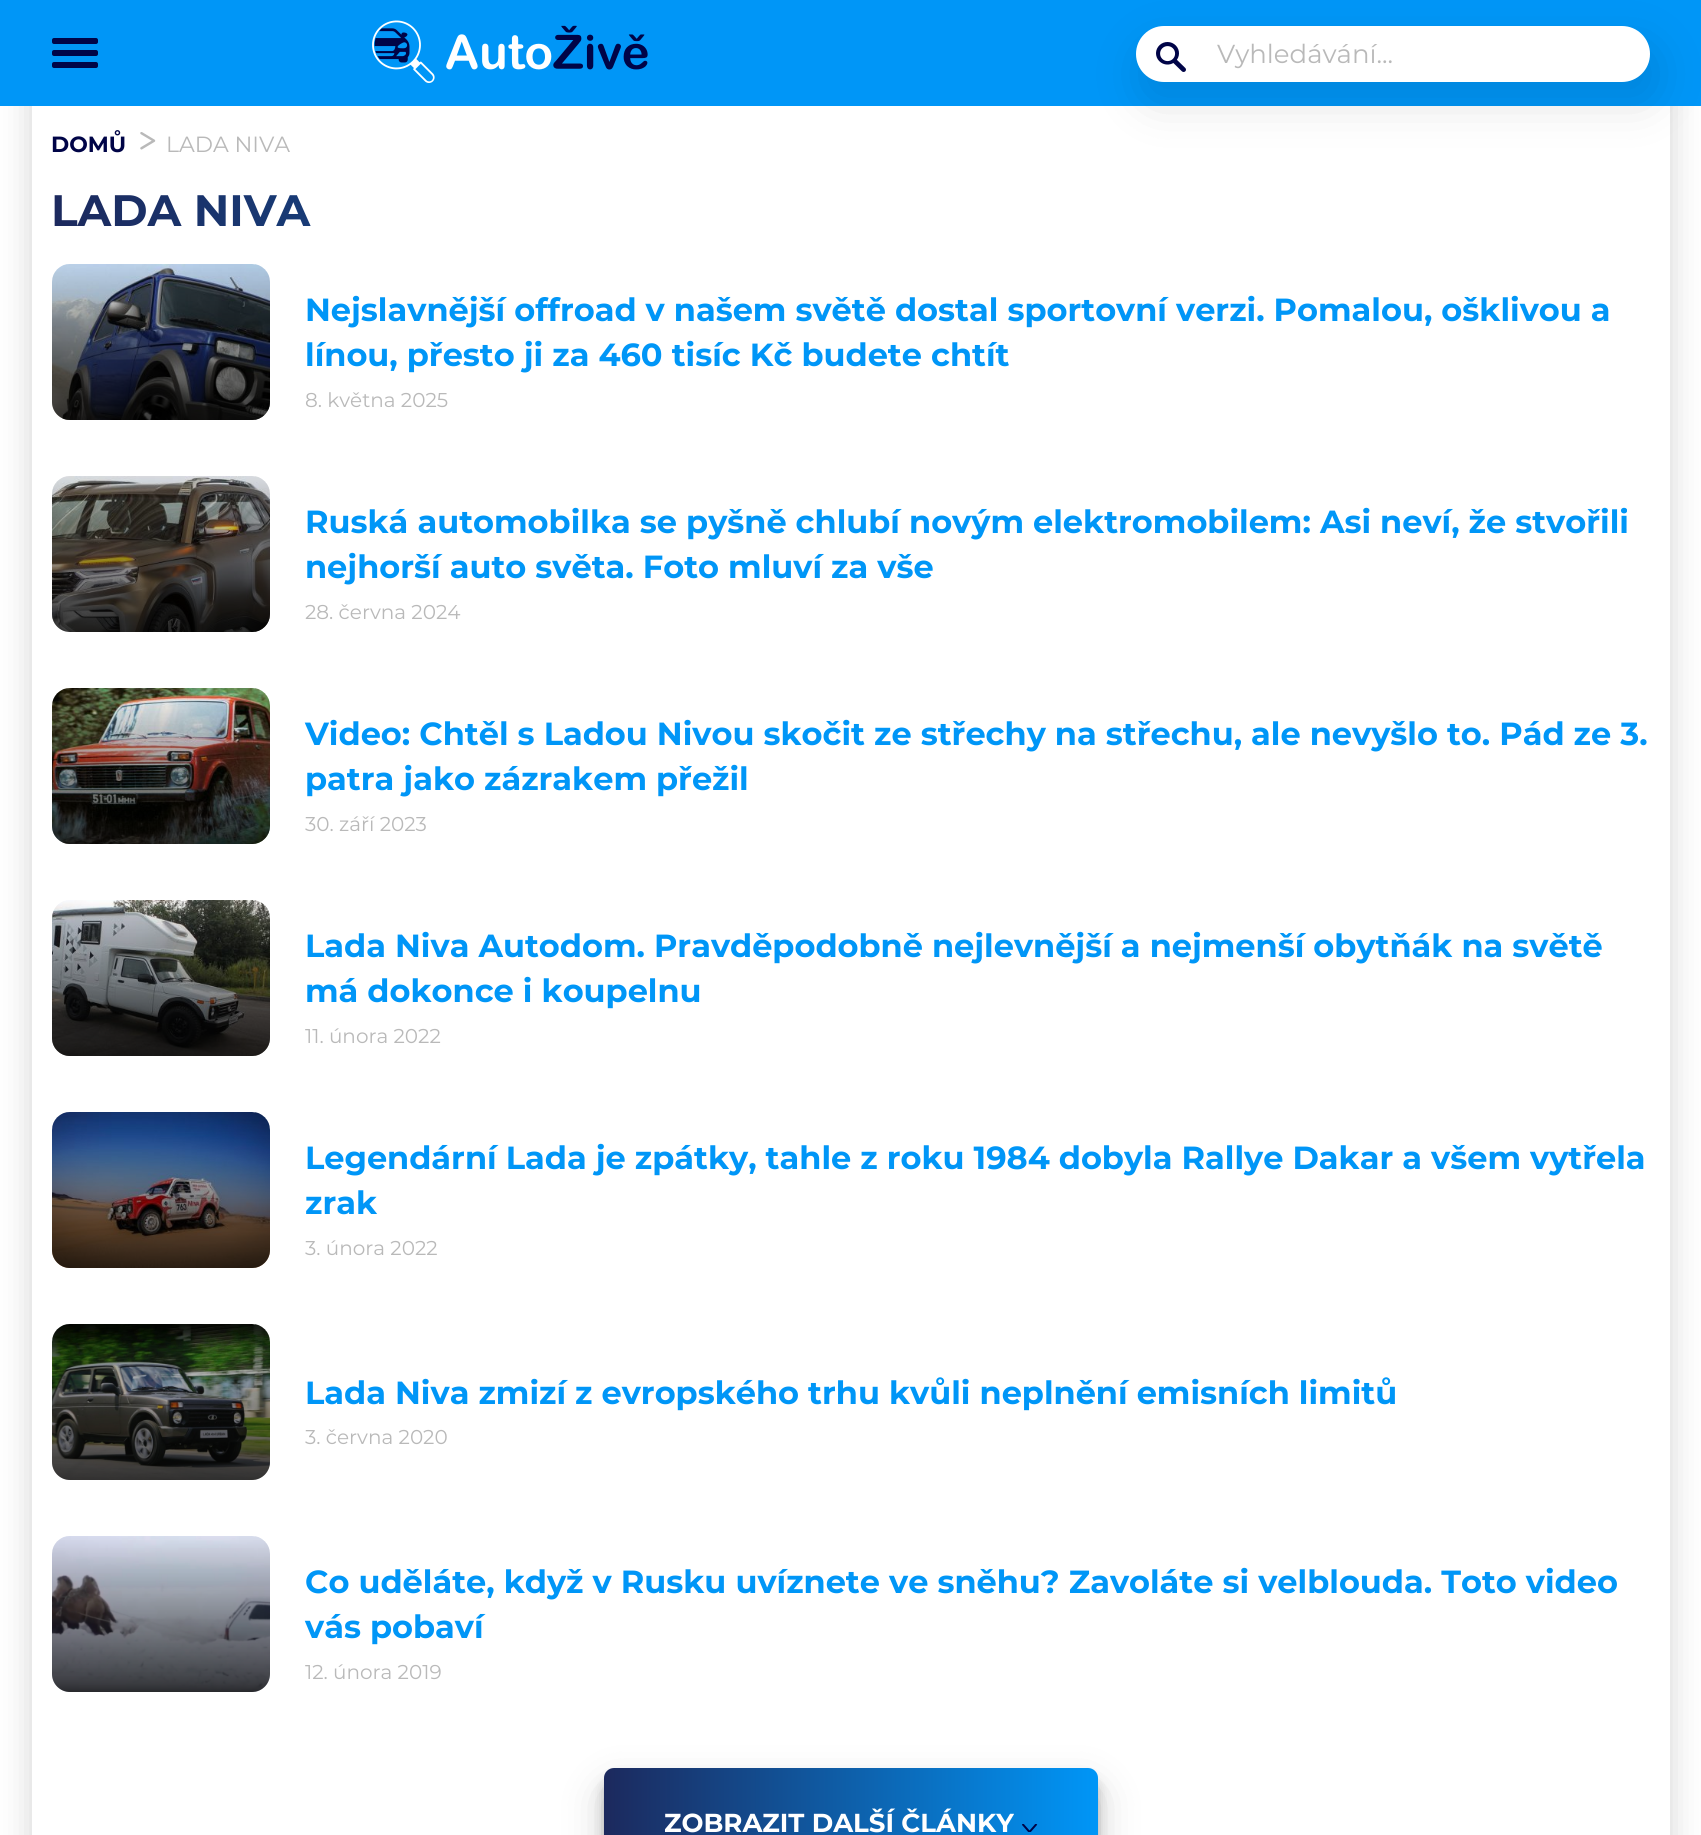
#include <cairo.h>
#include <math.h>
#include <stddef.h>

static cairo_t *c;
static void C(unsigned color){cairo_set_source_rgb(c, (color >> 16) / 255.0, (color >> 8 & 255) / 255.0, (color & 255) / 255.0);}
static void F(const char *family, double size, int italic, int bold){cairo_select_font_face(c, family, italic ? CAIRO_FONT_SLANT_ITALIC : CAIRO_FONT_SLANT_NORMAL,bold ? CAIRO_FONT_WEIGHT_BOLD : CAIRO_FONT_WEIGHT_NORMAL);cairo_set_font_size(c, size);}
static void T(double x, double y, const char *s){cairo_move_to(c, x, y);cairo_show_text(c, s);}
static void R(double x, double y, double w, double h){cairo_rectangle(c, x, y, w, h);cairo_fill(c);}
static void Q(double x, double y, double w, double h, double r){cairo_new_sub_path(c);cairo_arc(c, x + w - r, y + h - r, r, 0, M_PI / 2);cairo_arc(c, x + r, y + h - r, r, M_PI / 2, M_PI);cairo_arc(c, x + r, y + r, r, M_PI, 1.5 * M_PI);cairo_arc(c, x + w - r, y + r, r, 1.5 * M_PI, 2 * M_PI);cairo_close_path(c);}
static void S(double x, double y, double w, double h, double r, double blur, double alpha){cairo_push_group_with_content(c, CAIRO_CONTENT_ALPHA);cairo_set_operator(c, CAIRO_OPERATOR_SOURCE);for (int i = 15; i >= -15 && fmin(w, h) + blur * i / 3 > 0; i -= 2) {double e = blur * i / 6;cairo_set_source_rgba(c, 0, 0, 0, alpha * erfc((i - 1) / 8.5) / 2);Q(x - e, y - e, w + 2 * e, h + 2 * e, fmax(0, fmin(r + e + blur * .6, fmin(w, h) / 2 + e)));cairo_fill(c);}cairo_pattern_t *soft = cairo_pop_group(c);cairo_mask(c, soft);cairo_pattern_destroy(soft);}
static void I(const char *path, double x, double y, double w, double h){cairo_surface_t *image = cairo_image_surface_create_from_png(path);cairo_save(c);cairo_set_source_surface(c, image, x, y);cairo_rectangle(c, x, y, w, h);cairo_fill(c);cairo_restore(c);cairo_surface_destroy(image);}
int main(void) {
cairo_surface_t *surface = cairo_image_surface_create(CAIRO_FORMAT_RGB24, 1701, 1835);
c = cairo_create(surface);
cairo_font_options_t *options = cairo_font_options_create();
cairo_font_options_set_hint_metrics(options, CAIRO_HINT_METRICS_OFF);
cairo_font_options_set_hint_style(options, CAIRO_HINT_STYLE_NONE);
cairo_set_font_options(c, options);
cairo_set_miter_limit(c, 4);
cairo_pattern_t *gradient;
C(0xffffff);
cairo_paint(c);
cairo_save(c);
cairo_set_fill_rule(c,CAIRO_FILL_RULE_EVEN_ODD);
cairo_new_path(c);
cairo_move_to(c,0,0);
cairo_line_to(c,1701,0);
cairo_line_to(c,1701,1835);
cairo_line_to(c,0,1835);
cairo_close_path(c);
cairo_move_to(c,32,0);
cairo_line_to(c,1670,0);
cairo_line_to(c,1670,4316);
cairo_line_to(c,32,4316);
cairo_close_path(c);
cairo_clip(c);
C(0xd4d4d4);
S(32,0,1638,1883,0,16,1);
cairo_restore(c);
C(0x0096f7);
R(0,0,1701,106);
C(0x000447);
Q(52,38,46,6,2);
cairo_fill(c);
Q(52,50,46,6,2);
cairo_fill(c);
Q(52,62,46,6,2);
cairo_fill(c);
I("1.png",372,20,276,63);
C(0x000000);
S(1142,46,514,56,28,25,.12);
C(0xffffff);
Q(1136,26,514,56,28);
cairo_fill(c);
I("2.png",1156,42,30,30);
F("Montserrat",26,0,0);
C(0xb9b9b9);
T(1217,63,"Vyhledávání...");
F("Montserrat",22,0,1);
C(0x000447);
T(51,152,"DOMŮ");
F("Comfortaa",32,0,0);
C(0xb9b9b9);
T(139,152,">");
F("Montserrat",22,0,0);
T(166,152,"LADA NIVA");
F("Montserrat",44,0,1);
gradient = cairo_pattern_create_linear(51,211,1651,211);
cairo_pattern_add_color_stop_rgba(gradient,0,0.11,0.161,0.365,1);
cairo_pattern_add_color_stop_rgba(gradient,1,0,0.588,0.969,1);
cairo_set_source(c,gradient);
cairo_pattern_destroy(gradient);
T(51,226,"LADA NIVA");
I("3.png",52,264,218,156);
gradient = cairo_pattern_create_linear(161,264,161,420);
cairo_pattern_add_color_stop_rgba(gradient,0,0,0,0,0);
cairo_pattern_add_color_stop_rgba(gradient,1,0,0,0,.76);
cairo_set_source(c,gradient);
cairo_pattern_destroy(gradient);
Q(52,264,218,156,18);
cairo_fill(c);
F("Montserrat",32,0,1);
C(0x0096f7);
T(305,321,"Nejslavnější offroad v našem světě dostal sportovní verzi. Pomalou, ošklivou a");
T(305,366,"línou, přesto ji za 460 tisíc Kč budete chtít");
F("Montserrat",20,0,0);
C(0xb9b9b9);
T(305,407,"8. května 2025");
I("4.png",52,476,218,156);
gradient = cairo_pattern_create_linear(161,476,161,632);
cairo_pattern_add_color_stop_rgba(gradient,0,0,0,0,0);
cairo_pattern_add_color_stop_rgba(gradient,1,0,0,0,.76);
cairo_set_source(c,gradient);
cairo_pattern_destroy(gradient);
Q(52,476,218,156,18);
cairo_fill(c);
F("Montserrat",32,0,1);
C(0x0096f7);
T(305,533,"Ruská automobilka se pyšně chlubí novým elektromobilem: Asi neví, že stvořili");
T(305,578,"nejhorší auto světa. Foto mluví za vše");
F("Montserrat",20,0,0);
C(0xb9b9b9);
T(305,619,"28. června 2024");
I("5.png",52,688,218,156);
gradient = cairo_pattern_create_linear(161,688,161,844);
cairo_pattern_add_color_stop_rgba(gradient,0,0,0,0,0);
cairo_pattern_add_color_stop_rgba(gradient,1,0,0,0,.76);
cairo_set_source(c,gradient);
cairo_pattern_destroy(gradient);
Q(52,688,218,156,18);
cairo_fill(c);
F("Montserrat",32,0,1);
C(0x0096f7);
T(305,745,"Video: Chtěl s Ladou Nivou skočit ze střechy na střechu, ale nevyšlo to. Pád ze 3.");
T(305,790,"patra jako zázrakem přežil");
F("Montserrat",20,0,0);
C(0xb9b9b9);
T(305,831,"30. září 2023");
I("6.png",52,900,218,156);
gradient = cairo_pattern_create_linear(161,900,161,1056);
cairo_pattern_add_color_stop_rgba(gradient,0,0,0,0,0);
cairo_pattern_add_color_stop_rgba(gradient,1,0,0,0,.76);
cairo_set_source(c,gradient);
cairo_pattern_destroy(gradient);
Q(52,900,218,156,18);
cairo_fill(c);
F("Montserrat",32,0,1);
C(0x0096f7);
T(305,957,"Lada Niva Autodom. Pravděpodobně nejlevnější a nejmenší obytňák na světě");
T(305,1002,"má dokonce i koupelnu");
F("Montserrat",20,0,0);
C(0xb9b9b9);
T(305,1043,"11. února 2022");
I("7.png",52,1112,218,156);
gradient = cairo_pattern_create_linear(161,1112,161,1268);
cairo_pattern_add_color_stop_rgba(gradient,0,0,0,0,0);
cairo_pattern_add_color_stop_rgba(gradient,1,0,0,0,.76);
cairo_set_source(c,gradient);
cairo_pattern_destroy(gradient);
Q(52,1112,218,156,18);
cairo_fill(c);
F("Montserrat",32,0,1);
C(0x0096f7);
T(305,1169,"Legendární Lada je zpátky, tahle z roku 1984 dobyla Rallye Dakar a všem vytřela");
T(305,1214,"zrak");
F("Montserrat",20,0,0);
C(0xb9b9b9);
T(305,1255,"3. února 2022");
I("8.png",52,1324,218,156);
gradient = cairo_pattern_create_linear(161,1324,161,1480);
cairo_pattern_add_color_stop_rgba(gradient,0,0,0,0,0);
cairo_pattern_add_color_stop_rgba(gradient,1,0,0,0,.76);
cairo_set_source(c,gradient);
cairo_pattern_destroy(gradient);
Q(52,1324,218,156,18);
cairo_fill(c);
F("Montserrat",32,0,1);
C(0x0096f7);
T(305,1404,"Lada Niva zmizí z evropského trhu kvůli neplnění emisních limitů");
F("Montserrat",20,0,0);
C(0xb9b9b9);
T(305,1444,"3. června 2020");
I("9.png",52,1536,218,156);
gradient = cairo_pattern_create_linear(161,1536,161,1692);
cairo_pattern_add_color_stop_rgba(gradient,0,0,0,0,0);
cairo_pattern_add_color_stop_rgba(gradient,1,0,0,0,.76);
cairo_set_source(c,gradient);
cairo_pattern_destroy(gradient);
Q(52,1536,218,156,18);
cairo_fill(c);
F("Montserrat",32,0,1);
C(0x0096f7);
T(305,1593,"Co uděláte, když v Rusku uvíznete ve sněhu? Zavoláte si velblouda. Toto video");
T(305,1638,"vás pobaví");
F("Montserrat",20,0,0);
C(0xb9b9b9);
T(305,1679,"12. února 2019");
C(0x000000);
S(604,1780,494,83,10,6,.23);
S(604,1788,494,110,10,20,.19);
gradient = cairo_pattern_create_linear(604,1823,1098,1823);
cairo_pattern_add_color_stop_rgba(gradient,0,0.11,0.161,0.365,1);
cairo_pattern_add_color_stop_rgba(gradient,1,0,0.588,0.969,1);
cairo_set_source(c,gradient);
cairo_pattern_destroy(gradient);
Q(604,1768,494,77,10);
cairo_fill(c);
F("Montserrat",26,0,1);
C(0xffffff);
T(664,1832,"ZOBRAZIT DALŠÍ ČLÁNKY");
cairo_save(c);
cairo_rectangle(c,1022,1824,16,8);
cairo_clip(c);
cairo_new_path(c);
cairo_move_to(c,1036.5,1824);
cairo_line_to(c,1029.5,1832);
cairo_line_to(c,1022.5,1824);
C(0x000447);
cairo_stroke(c);
cairo_restore(c);
cairo_surface_write_to_png(surface, "o.png");
cairo_font_options_destroy(options);
cairo_destroy(c);
cairo_surface_destroy(surface);
return 0;
}
